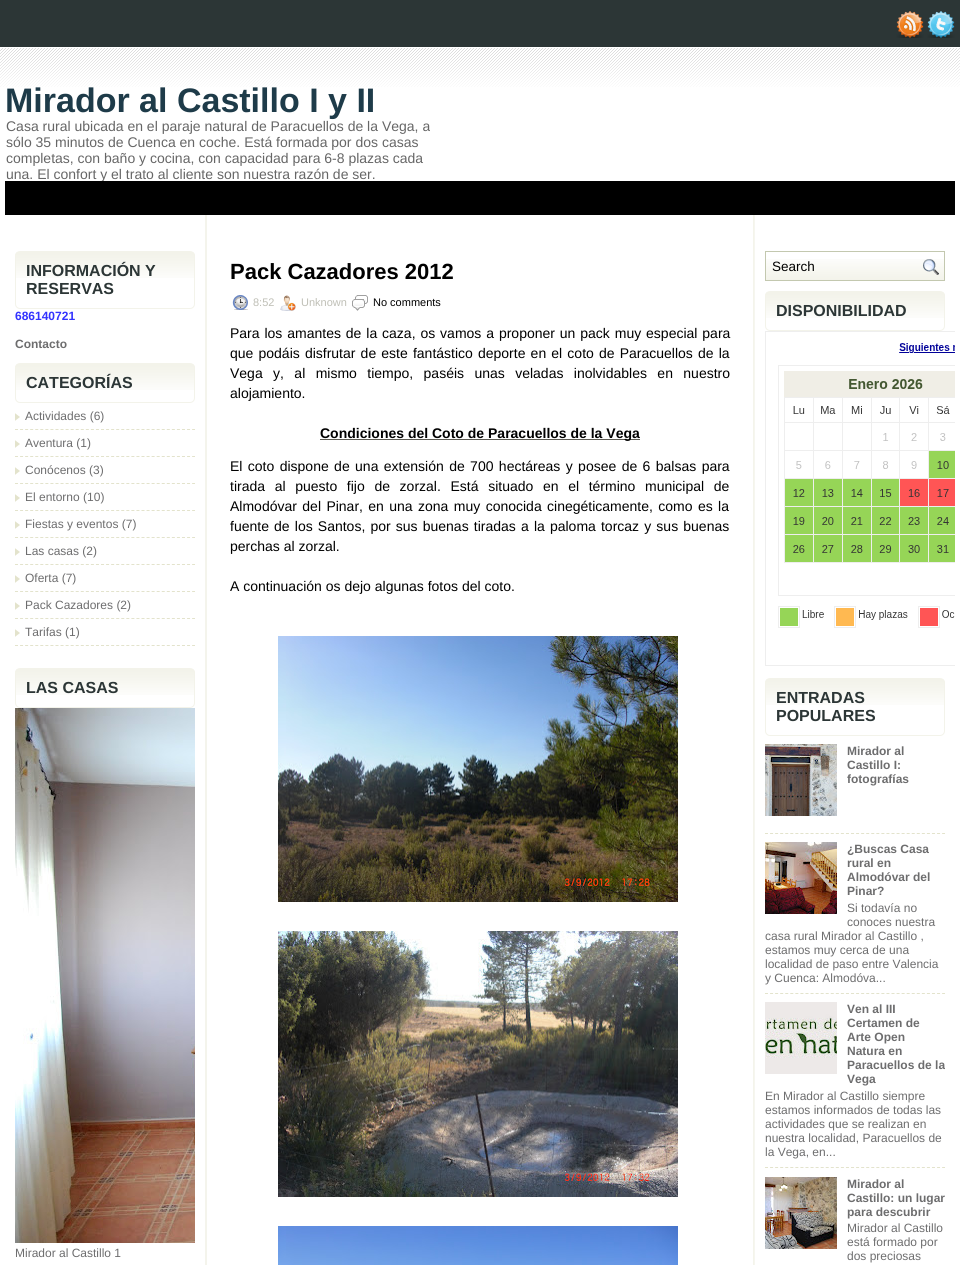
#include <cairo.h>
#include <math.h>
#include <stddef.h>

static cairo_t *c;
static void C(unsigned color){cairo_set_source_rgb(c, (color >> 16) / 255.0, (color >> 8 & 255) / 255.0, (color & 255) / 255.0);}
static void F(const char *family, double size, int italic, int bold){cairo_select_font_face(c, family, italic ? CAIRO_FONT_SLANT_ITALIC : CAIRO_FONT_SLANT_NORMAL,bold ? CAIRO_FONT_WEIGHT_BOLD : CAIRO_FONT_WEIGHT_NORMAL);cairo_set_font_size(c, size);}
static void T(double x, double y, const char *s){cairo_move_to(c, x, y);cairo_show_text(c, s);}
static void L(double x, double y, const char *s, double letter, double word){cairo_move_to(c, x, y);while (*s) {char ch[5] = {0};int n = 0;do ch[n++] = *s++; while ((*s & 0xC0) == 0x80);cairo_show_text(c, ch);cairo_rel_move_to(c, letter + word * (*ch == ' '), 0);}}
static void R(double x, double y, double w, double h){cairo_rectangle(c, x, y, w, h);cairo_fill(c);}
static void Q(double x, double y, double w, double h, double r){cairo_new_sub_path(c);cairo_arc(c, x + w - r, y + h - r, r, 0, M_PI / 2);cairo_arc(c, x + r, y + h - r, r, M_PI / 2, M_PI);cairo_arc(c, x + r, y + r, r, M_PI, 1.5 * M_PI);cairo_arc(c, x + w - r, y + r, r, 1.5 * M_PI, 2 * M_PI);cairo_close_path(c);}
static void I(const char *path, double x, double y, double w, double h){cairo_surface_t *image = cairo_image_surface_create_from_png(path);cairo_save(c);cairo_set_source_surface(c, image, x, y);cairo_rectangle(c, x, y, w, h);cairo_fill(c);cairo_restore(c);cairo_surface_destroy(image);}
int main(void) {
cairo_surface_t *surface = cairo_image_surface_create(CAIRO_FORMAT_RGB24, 960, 1265);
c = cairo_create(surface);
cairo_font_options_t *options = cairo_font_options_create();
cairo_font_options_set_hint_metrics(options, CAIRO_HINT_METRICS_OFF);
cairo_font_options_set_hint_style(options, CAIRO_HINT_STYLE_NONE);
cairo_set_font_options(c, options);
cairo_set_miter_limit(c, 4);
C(0xffffff);
cairo_paint(c);
I("1.png",0,0,960,87);
I("2.png",896,11,28,27);
I("3.png",927,11,28,27);
F("Liberation Sans",34,0,1);
C(0x1e3b49);
T(5,112,"Mirador al Castillo I y II");
F("Liberation Sans",14,0,0);
C(0x666666);
T(6,131,"Casa rural ubicada en el paraje natural de Paracuellos de la Vega, a");
T(6,147,"sólo 35 minutos de Cuenca en coche. Está formada por dos casas");
T(6,163,"completas, con baño y cocina, con capacidad para 6-8 plazas cada");
T(6,179,"una. El confort y el trato al cliente son nuestra razón de ser.");
C(0x000000);
R(5,181,950,34);
I("4.png",205,215,550,1050);
I("5.png",15,252,180,26);
Q(15.5,251.5,179,57,4.5);
C(0xf3f3ea);
cairo_set_line_width(c,1);
cairo_stroke(c);
F("Liberation Sans",16,0,1);
C(0x2c3636);
T(26,276,"INFORMACIÓN Y");
T(26,294,"RESERVAS");
F("Liberation Sans",12,0,1);
C(0x3333ff);
T(15,320,"686140721");
C(0x6d6d6e);
T(15,348,"Contacto");
I("6.png",15,364,180,26);
Q(15.5,363.5,179,39,4.5);
C(0xf3f3ea);
cairo_stroke(c);
F("Liberation Sans",16,0,1);
C(0x2c3636);
T(26,388,"CATEGORÍAS");
I("7.png",15,413,5,8);
cairo_new_path(c);
cairo_move_to(c,15,429.5);
cairo_line_to(c,195,429.5);
C(0xe3e3cc);
cairo_set_dash(c,(double[]){3,2.06},2,0);
cairo_stroke(c);
F("Liberation Sans",12,0,0);
C(0x6d6d6e);
T(25,420,"Actividades (6)");
I("7.png",15,440,5,8);
cairo_new_path(c);
cairo_move_to(c,15,456.5);
cairo_line_to(c,195,456.5);
C(0xe3e3cc);
cairo_stroke(c);
C(0x6d6d6e);
T(25,447,"Aventura (1)");
I("7.png",15,467,5,8);
cairo_new_path(c);
cairo_move_to(c,15,483.5);
cairo_line_to(c,195,483.5);
C(0xe3e3cc);
cairo_stroke(c);
C(0x6d6d6e);
T(25,474,"Conócenos (3)");
I("7.png",15,494,5,8);
cairo_new_path(c);
cairo_move_to(c,15,510.5);
cairo_line_to(c,195,510.5);
C(0xe3e3cc);
cairo_stroke(c);
C(0x6d6d6e);
T(25,501,"El entorno (10)");
I("7.png",15,521,5,8);
cairo_new_path(c);
cairo_move_to(c,15,537.5);
cairo_line_to(c,195,537.5);
C(0xe3e3cc);
cairo_stroke(c);
C(0x6d6d6e);
T(25,528,"Fiestas y eventos (7)");
I("7.png",15,548,5,8);
cairo_new_path(c);
cairo_move_to(c,15,564.5);
cairo_line_to(c,195,564.5);
C(0xe3e3cc);
cairo_stroke(c);
C(0x6d6d6e);
T(25,555,"Las casas (2)");
I("7.png",15,575,5,8);
cairo_new_path(c);
cairo_move_to(c,15,591.5);
cairo_line_to(c,195,591.5);
C(0xe3e3cc);
cairo_stroke(c);
C(0x6d6d6e);
T(25,582,"Oferta (7)");
I("7.png",15,602,5,8);
cairo_new_path(c);
cairo_move_to(c,15,618.5);
cairo_line_to(c,195,618.5);
C(0xe3e3cc);
cairo_stroke(c);
C(0x6d6d6e);
T(25,609,"Pack Cazadores (2)");
I("7.png",15,629,5,8);
cairo_new_path(c);
cairo_move_to(c,15,645.5);
cairo_line_to(c,195,645.5);
C(0xe3e3cc);
cairo_stroke(c);
C(0x6d6d6e);
T(25,636,"Tarifas (1)");
I("6.png",15,669,180,26);
Q(15.5,668.5,179,39,4.5);
C(0xf3f3ea);
cairo_set_dash(c,NULL,0,0);
cairo_stroke(c);
F("Liberation Sans",16,0,1);
C(0x2c3636);
T(26,693,"LAS CASAS");
I("8.png",15,708,180,535);
F("Liberation Sans",12,0,0);
C(0x6d6d6e);
T(15,1257,"Mirador al Castillo 1");
F("Liberation Sans",22,0,1);
C(0x000000);
T(230,279,"Pack Cazadores 2012");
I("9.png",232,295,16,15);
F("Liberation Sans",11,0,0);
C(0xbfbfb6);
T(253,306,"8:52");
I("10.png",280,295,16,16);
T(301,306,"Unknown");
I("11.png",352,295,16,16);
C(0x000000);
T(373,306,"No comments");
F("Liberation Sans",14,0,0);
L(230,338,"Para los amantes de la caza, os vamos a proponer un pack muy especial para",0,1);
L(230,358,"que podáis disfrutar de este fantástico deporte en el coto de Paracuellos de la",0,1.25);
L(230,378,"Vega y, al mismo tiempo, paséis unas veladas inolvidables en nuestro",0,6.5);
T(230,398,"alojamiento.");
C(0x5c5a52);
R(320,439,320,1);
F("Liberation Sans",14,0,1);
C(0x000000);
T(320,438,"Condiciones del Coto de Paracuellos de la Vega");
F("Liberation Sans",14,0,0);
L(230,471,"El coto dispone de una extensión de 700 hectáreas y posee de 6 balsas para",0,1.5);
L(230,491,"tirada al puesto fijo de zorzal. Está situado en el término municipal de",0,5.75);
L(230,511,"Almodóvar del Pinar, en una zona muy conocida cinegéticamente, como es la",0,1.5);
L(230,531,"fuente de los Santos, por sus buenas tiradas a la paloma torcaz y sus buenas",0,1.25);
T(230,551,"perchas al zorzal.");
T(230,591,"A continuación os dejo algunas fotos del coto.");
I("12.png",278,636,400,266);
I("13.png",278,931,400,266);
I("14.png",278,1226,400,39);
I("15.png",766,259,178,21);
cairo_rectangle(c,765.5,251.5,179,29);
C(0xc3c8af);
cairo_stroke(c);
F("Liberation Sans",13.5,0,0);
C(0x000000);
T(772,271,"Search");
I("16.png",923,259,16,16);
I("6.png",765,292,180,26);
Q(765.5,291.5,179,39,4.5);
C(0xf3f3ea);
cairo_stroke(c);
F("Liberation Sans",16,0,1);
C(0x2c3636);
T(776,316,"DISPONIBILIDAD");
I("17.png",765,331,190,335);
I("6.png",765,679,180,26);
Q(765.5,678.5,179,57,4.5);
C(0xf3f3ea);
cairo_stroke(c);
C(0x2c3636);
T(776,703,"ENTRADAS");
T(776,721,"POPULARES");
cairo_new_path(c);
cairo_move_to(c,765,833.5);
cairo_line_to(c,945,833.5);
C(0xe3e3cc);
cairo_set_dash(c,(double[]){3,2.06},2,0);
cairo_stroke(c);
I("18.png",765,744,72,72);
F("Liberation Sans",12,0,1);
C(0x6d6d6e);
T(847,755,"Mirador al");
T(847,769,"Castillo I:");
T(847,783,"fotografías");
cairo_new_path(c);
cairo_move_to(c,765,993.5);
cairo_line_to(c,945,993.5);
C(0xe3e3cc);
cairo_stroke(c);
I("19.png",765,842,72,72);
C(0x6d6d6e);
T(847,853,"¿Buscas Casa");
T(847,867,"rural en");
T(847,881,"Almodóvar del");
T(847,895,"Pinar?");
F("Liberation Sans",12,0,0);
T(847,912,"Si todavía no");
T(847,926,"conoces nuestra");
T(765,940,"casa rural Mirador al Castillo ,");
T(765,954,"estamos muy cerca de una");
T(765,968,"localidad de paso entre Valencia");
T(765,982,"y Cuenca: Almodóva...");
cairo_new_path(c);
cairo_move_to(c,765,1167.5);
cairo_line_to(c,945,1167.5);
C(0xe3e3cc);
cairo_stroke(c);
I("20.png",765,1002,72,72);
F("Liberation Sans",12,0,1);
C(0x6d6d6e);
T(847,1013,"Ven al III");
T(847,1027,"Certamen de");
T(847,1041,"Arte Open");
T(847,1055,"Natura en");
T(847,1069,"Paracuellos de la");
T(847,1083,"Vega");
F("Liberation Sans",12,0,0);
T(765,1100,"En Mirador al Castillo siempre");
T(765,1114,"estamos informados de todas las");
T(765,1128,"actividades que se realizan en");
T(765,1142,"nuestra localidad, Paracuellos de");
T(765,1156,"la Vega, en...");
I("21.png",765,1177,72,72);
F("Liberation Sans",12,0,1);
T(847,1188,"Mirador al");
T(847,1202,"Castillo: un lugar");
T(847,1216,"para descubrir");
F("Liberation Sans",12,0,0);
T(847,1232,"Mirador al Castillo");
T(847,1246,"está formado por");
T(847,1260,"dos preciosas");
cairo_surface_write_to_png(surface, "o.png");
cairo_font_options_destroy(options);
cairo_destroy(c);
cairo_surface_destroy(surface);
return 0;
}
